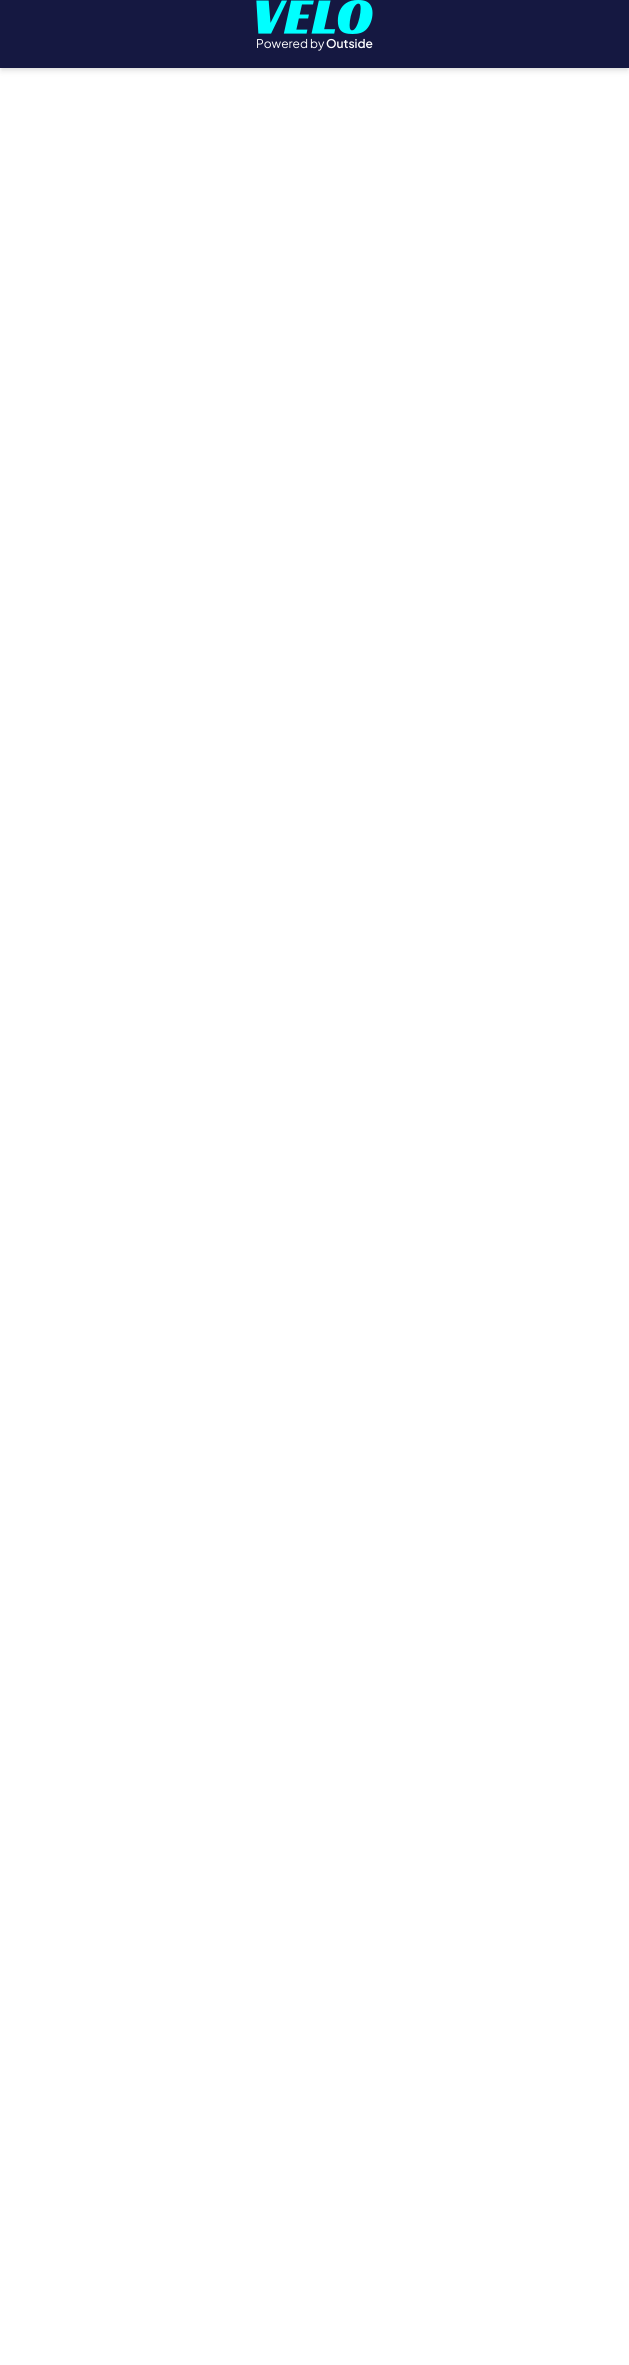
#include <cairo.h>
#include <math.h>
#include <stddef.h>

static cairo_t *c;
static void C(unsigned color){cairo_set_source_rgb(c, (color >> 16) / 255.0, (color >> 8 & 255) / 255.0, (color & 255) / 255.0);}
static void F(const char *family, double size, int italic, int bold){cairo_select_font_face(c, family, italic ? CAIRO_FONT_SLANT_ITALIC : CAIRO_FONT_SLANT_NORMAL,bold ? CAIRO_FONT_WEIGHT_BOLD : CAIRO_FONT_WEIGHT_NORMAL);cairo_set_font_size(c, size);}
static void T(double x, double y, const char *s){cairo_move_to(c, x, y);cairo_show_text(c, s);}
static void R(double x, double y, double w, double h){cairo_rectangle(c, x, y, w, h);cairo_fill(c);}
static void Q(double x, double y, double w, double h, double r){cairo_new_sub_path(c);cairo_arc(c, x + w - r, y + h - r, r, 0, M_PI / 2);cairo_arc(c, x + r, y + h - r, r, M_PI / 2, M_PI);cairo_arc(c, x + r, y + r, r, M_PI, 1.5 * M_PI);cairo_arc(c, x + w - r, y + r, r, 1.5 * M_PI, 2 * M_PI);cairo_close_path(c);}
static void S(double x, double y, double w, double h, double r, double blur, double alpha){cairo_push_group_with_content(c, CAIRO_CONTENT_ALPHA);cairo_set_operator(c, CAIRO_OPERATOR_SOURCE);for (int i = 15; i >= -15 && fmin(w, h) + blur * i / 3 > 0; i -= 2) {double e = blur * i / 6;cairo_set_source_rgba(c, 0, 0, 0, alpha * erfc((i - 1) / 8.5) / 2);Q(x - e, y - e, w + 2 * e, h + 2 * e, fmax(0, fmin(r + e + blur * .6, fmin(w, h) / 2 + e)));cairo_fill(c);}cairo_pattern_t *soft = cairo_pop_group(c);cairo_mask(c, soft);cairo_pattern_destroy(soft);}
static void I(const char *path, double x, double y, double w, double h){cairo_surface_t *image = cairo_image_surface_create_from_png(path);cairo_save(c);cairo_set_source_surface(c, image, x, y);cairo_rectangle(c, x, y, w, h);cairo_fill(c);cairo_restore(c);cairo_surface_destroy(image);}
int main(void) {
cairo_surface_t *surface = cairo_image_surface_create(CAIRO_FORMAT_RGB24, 629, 2365);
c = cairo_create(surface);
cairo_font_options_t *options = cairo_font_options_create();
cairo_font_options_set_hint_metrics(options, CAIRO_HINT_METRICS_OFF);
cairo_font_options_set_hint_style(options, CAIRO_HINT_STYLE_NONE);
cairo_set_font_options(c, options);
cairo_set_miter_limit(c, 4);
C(0xffffff);
cairo_paint(c);
C(0x000000);
S(2,4,625,64,0,2,.1);
S(1,5,627,66,0,3,.1);
C(0x151841);
R(0,0,629,68);
I("1.png",256,0,117,34);
F("Plus Jakarta Sans",12,0,0);
C(0xffffff);
T(256,48,"Powered by");
F("Plus Jakarta Sans SemiBold",12,0,0);
T(326,48,"Outside");
cairo_surface_write_to_png(surface, "o.png");
cairo_font_options_destroy(options);
cairo_destroy(c);
cairo_surface_destroy(surface);
return 0;
}
